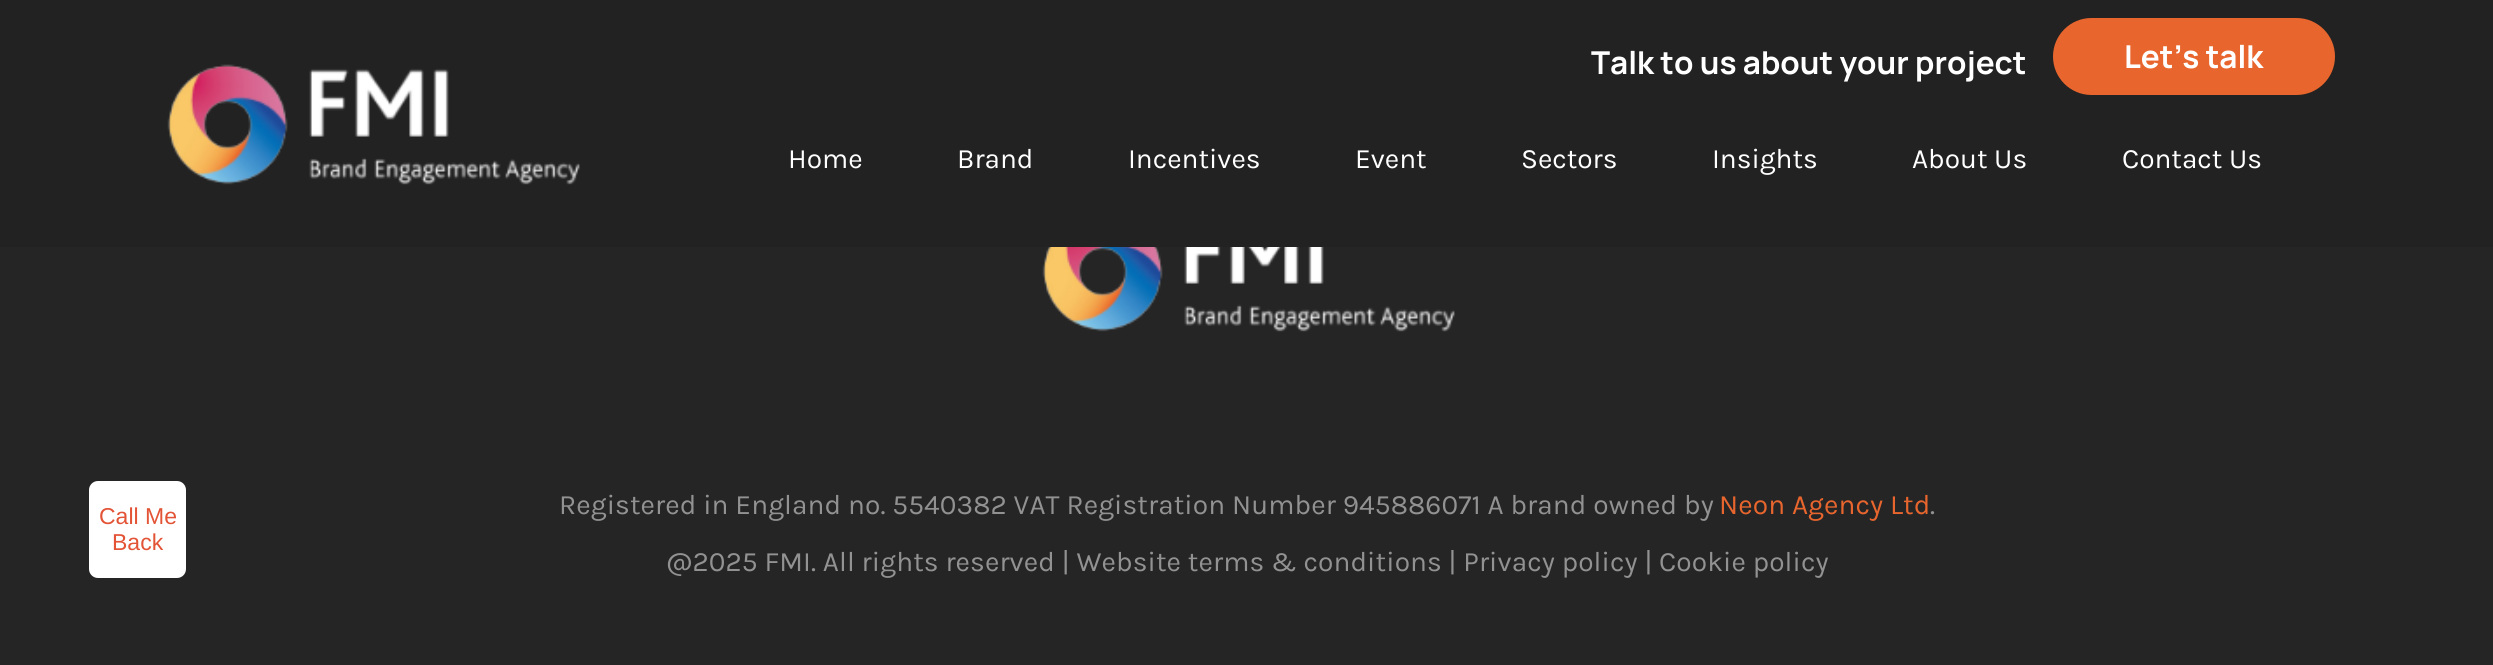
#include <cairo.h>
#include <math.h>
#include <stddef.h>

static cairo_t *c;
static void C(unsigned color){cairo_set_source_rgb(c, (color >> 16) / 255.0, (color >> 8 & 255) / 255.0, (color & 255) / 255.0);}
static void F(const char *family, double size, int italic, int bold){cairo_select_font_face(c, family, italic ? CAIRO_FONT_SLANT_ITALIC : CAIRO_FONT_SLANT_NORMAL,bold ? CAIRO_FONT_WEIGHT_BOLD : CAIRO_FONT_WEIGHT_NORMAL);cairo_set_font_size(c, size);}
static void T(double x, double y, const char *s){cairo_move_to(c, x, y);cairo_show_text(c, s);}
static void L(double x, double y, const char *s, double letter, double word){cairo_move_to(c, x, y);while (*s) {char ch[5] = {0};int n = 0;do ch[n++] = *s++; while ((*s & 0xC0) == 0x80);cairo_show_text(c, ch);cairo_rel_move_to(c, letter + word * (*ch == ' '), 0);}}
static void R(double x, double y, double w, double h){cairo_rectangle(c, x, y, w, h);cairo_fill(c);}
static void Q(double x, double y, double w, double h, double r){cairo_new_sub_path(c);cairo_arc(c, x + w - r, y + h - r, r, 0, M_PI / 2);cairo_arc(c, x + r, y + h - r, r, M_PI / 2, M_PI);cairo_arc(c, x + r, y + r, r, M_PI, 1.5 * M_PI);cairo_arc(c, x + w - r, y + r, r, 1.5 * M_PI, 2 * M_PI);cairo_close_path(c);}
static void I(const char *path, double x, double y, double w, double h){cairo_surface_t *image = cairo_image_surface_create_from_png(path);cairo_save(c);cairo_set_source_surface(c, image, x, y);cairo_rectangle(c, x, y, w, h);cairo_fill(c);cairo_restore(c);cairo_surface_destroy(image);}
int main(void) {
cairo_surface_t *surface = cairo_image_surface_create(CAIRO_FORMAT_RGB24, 2493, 665);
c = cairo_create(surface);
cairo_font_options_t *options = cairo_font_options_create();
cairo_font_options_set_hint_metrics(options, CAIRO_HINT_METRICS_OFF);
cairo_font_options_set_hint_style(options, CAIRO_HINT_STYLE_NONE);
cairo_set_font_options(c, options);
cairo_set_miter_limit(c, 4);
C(0x252525);
cairo_paint(c);
C(0x222222);
R(0,0,2493,247);
I("1.png",167,64,413,121);
F("Manrope",31.5,0,1);
C(0xffffff);
T(1591,74,"Talk to us about your project");
C(0xe8662e);
Q(2053,18,282,77,38.5);
cairo_fill(c);
C(0xffffff);
T(2124,68,"Let’s talk");
F("Karla",28,0,0);
T(788,168,"Home");
T(957,168,"Brand");
T(1128,168,"Incentives");
T(1355,168,"Event");
T(1521,168,"Sectors");
T(1712,168,"Insights");
T(1912,168,"About Us");
T(2122,168,"Contact Us");
Q(89,481,97,97,9);
cairo_fill(c);
F("Liberation Sans",23,0,0);
C(0xe35336);
T(99,524,"Call Me");
T(112,550,"Back");
I("2.png",1042,247,413,85);
F("Karla",28,0,0);
C(0x929292);
L(559,514,"Registered in England no. 5540382 VAT Registration Number 945886071 A brand owned by",.1,0);
C(0xe8662e);
L(1719,514,"Neon Agency Ltd",.1,0);
C(0x929292);
L(1930,514,".",.1,0);
L(666,571,"@2025 FMI. All rights reserved | Website terms & conditions | Privacy policy | Cookie policy",.1,0);
cairo_surface_write_to_png(surface, "o.png");
cairo_font_options_destroy(options);
cairo_destroy(c);
cairo_surface_destroy(surface);
return 0;
}
